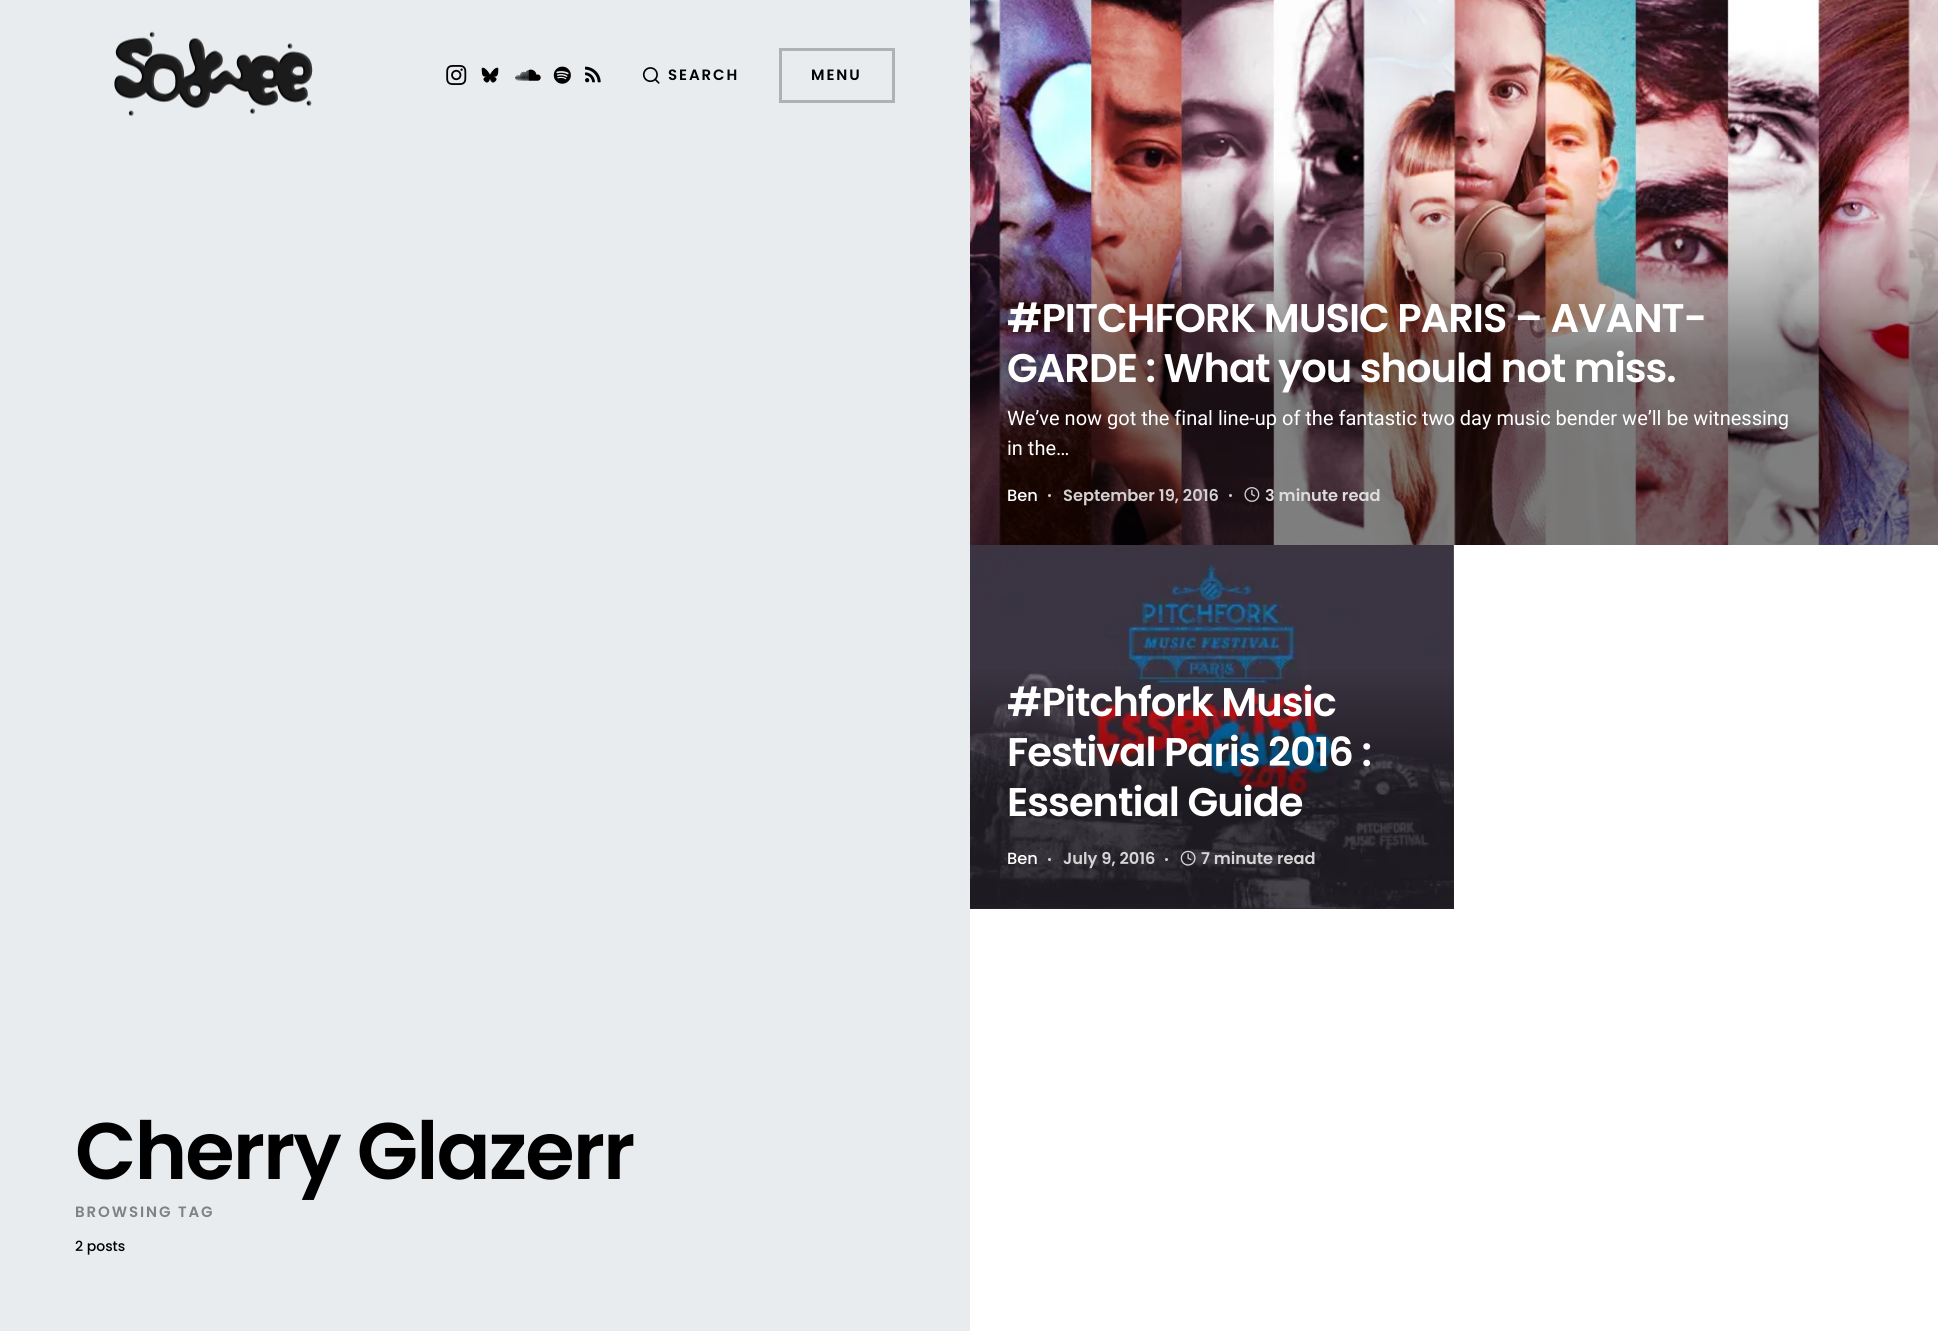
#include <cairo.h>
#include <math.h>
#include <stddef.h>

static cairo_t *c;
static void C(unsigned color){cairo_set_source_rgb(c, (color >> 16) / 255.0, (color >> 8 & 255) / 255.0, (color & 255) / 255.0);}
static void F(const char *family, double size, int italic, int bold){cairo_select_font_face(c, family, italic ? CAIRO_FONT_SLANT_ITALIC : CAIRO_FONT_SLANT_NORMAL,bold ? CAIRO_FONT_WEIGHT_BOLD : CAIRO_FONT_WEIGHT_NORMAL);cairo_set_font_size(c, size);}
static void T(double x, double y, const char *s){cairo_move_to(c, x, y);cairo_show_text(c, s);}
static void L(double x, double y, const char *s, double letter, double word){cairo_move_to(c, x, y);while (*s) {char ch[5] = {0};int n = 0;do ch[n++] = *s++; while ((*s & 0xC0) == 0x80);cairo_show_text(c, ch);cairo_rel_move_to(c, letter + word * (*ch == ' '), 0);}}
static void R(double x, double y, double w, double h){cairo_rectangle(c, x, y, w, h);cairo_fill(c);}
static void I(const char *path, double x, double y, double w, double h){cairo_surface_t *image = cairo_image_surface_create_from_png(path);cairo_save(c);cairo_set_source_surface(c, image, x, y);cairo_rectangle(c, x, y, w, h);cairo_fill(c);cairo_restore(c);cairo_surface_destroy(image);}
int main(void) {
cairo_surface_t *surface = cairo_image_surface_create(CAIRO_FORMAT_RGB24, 1938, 1331);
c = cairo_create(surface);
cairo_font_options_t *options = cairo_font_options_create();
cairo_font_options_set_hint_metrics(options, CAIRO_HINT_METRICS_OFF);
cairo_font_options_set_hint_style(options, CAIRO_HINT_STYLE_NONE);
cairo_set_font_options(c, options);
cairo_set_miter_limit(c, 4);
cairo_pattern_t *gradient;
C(0xffffff);
cairo_paint(c);
C(0xe9ecef);
R(0,0,970,1331);
I("1.png",114,31,199,85);
I("2.png",446,65,21,20);
I("3.png",481,67,18,16);
I("4.png",515,69,26,12);
I("5.png",553,66,18,18);
I("6.png",585,66,16,17);
I("7.png",642,67,18,17);
F("Poppins SemiBold",15,0,0);
C(0x000000);
L(668,80,"SEARCH",1.9,0);
cairo_rectangle(c,780.5,49.5,113,52);
C(0xafb1b3);
cairo_set_line_width(c,3);
cairo_stroke(c);
C(0x000000);
L(811,80,"MENU",1.9,0);
F("Poppins SemiBold",80,0,0);
L(75,1179,"Cherry Glazerr",-2,0);
F("Poppins SemiBold",15,0,0);
C(0x818181);
L(75,1217,"BROWSING TAG",1.9,0);
F("Poppins Medium",14,0,0);
C(0x000000);
T(75,1251,"2 posts");
I("8.png",970,0,968,545);
F("Poppins SemiBold",40,0,0);
C(0xffffff);
L(1007,332,"#PITCHFORK MUSIC PARIS – AVANT-",-1,0);
L(1007,382,"GARDE : What you should not miss.",-1,0);
F("Roboto",20,0,0);
T(1007,425,"We’ve now got the final line-up of the fantastic two day music bender we’ll be witnessing");
T(1007,455,"in the…");
F("Poppins Medium",16.25,0,0);
T(1007,501,"Ben");
cairo_set_source_rgba(c,1,1,1,0.8);
cairo_new_path(c);
cairo_arc(c,1049.5,495.5,1.5,0,2 * M_PI);
cairo_fill(c);
F("Poppins SemiBold",16.25,0,0);
C(0xd4d0d0);
T(1063,501,"September 19, 2016");
C(0xd1cfd0);
cairo_new_path(c);
cairo_arc(c,1230.5,495.5,1.5,0,2 * M_PI);
cairo_fill(c);
I("9.png",1244,487,16,15);
C(0xdedbdc);
T(1265,501,"3 minute read");
gradient = cairo_pattern_create_linear(1125,489,1299,965);
cairo_pattern_add_color_stop_rgba(gradient,0,0.502,0.502,0.502,1);
cairo_pattern_add_color_stop_rgba(gradient,1,0.302,0.302,0.302,1);
cairo_set_source(c,gradient);
cairo_pattern_destroy(gradient);
R(970,545,484,364);
I("10.png",970,545,484,364);
gradient = cairo_pattern_create_linear(1212,545,1212,909);
cairo_pattern_add_color_stop_rgba(gradient,.33,0,0,0,0);
cairo_pattern_add_color_stop_rgba(gradient,.67,0,0,0,.5);
cairo_set_source(c,gradient);
cairo_pattern_destroy(gradient);
R(970,670,484,239);
F("Poppins SemiBold",40,0,0);
C(0xffffff);
L(1007,716,"#Pitchfork Music",-1,0);
L(1007,766,"Festival Paris 2016 :",-1,0);
L(1007,816,"Essential Guide",-1,0);
F("Poppins Medium",16.25,0,0);
T(1007,864,"Ben");
cairo_set_source_rgba(c,1,1,1,0.8);
cairo_new_path(c);
cairo_arc(c,1049.5,859.5,1.5,0,2 * M_PI);
cairo_fill(c);
F("Poppins SemiBold",16.25,0,0);
C(0xd5d5d6);
T(1063,864,"July 9, 2016");
C(0xd5d4d6);
cairo_new_path(c);
cairo_arc(c,1166.5,859.5,1.5,0,2 * M_PI);
cairo_fill(c);
I("11.png",1180,850,16,16);
C(0xd5d5d6);
T(1201,864,"7 minute read");
cairo_surface_write_to_png(surface, "o.png");
cairo_font_options_destroy(options);
cairo_destroy(c);
cairo_surface_destroy(surface);
return 0;
}
